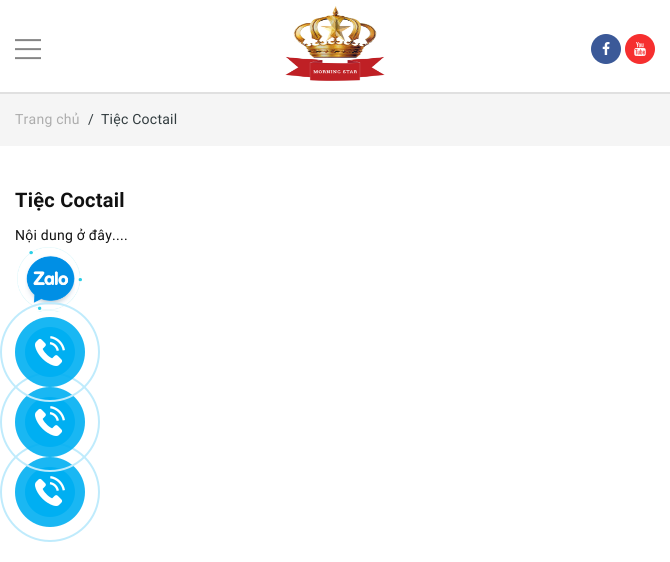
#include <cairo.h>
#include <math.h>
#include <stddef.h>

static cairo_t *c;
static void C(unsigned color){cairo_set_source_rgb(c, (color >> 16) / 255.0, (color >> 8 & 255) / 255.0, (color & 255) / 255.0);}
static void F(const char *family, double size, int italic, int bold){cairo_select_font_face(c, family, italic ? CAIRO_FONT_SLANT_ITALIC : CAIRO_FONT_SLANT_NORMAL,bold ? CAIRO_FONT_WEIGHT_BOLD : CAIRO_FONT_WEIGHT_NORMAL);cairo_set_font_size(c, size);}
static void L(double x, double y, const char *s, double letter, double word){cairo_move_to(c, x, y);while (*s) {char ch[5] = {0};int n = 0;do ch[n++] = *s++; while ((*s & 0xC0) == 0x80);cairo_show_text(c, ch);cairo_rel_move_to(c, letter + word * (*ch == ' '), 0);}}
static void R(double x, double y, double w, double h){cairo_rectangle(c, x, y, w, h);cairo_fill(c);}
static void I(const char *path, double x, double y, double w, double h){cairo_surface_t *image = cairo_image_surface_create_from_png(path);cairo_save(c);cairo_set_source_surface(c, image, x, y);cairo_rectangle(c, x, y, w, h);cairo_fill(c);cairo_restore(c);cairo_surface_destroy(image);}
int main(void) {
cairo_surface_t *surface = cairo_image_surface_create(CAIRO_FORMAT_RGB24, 670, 562);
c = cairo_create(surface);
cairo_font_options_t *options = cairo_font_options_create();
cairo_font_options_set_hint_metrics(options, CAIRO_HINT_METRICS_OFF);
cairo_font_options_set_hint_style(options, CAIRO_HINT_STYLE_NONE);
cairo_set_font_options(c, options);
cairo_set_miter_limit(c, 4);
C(0xffffff);
cairo_paint(c);
I("1.png",15,39,26,21);
I("2.png",285,6,100,75);
C(0x3b5998);
cairo_arc(c,606,49,15,0,2 * M_PI);
cairo_fill(c);
I("3.png",602,42,8,13);
C(0xf62f2f);
cairo_arc(c,640,49,15,0,2 * M_PI);
cairo_fill(c);
I("4.png",634,42,12,14);
C(0xe0e0e0);
R(0,92,670,2);
C(0xf5f5f5);
R(0,94,670,52);
F("Roboto",14,0,0);
C(0xadadad);
L(15,124,"Trang chủ",.25,0);
C(0x323c3f);
L(88,124,"/",.25,0);
L(101,124,"Tiệc Coctail",.25,0);
F("Roboto",20,0,1);
C(0x111111);
L(15,207,"Tiệc Coctail",.25,0);
F("Roboto",14,0,0);
L(15,240,"Nội dung ở đây....",.25,0);
I("5.png",17,247,65,65);
I("6.png",25,255,50,50);
cairo_arc(c,50,492,49,0,2 * M_PI);
C(0xbfebfc);
cairo_stroke(c);
C(0x1ab7f3);
cairo_arc(c,50,492,35,0,2 * M_PI);
cairo_fill(c);
C(0x00aff2);
cairo_arc(c,50,492,25,0,2 * M_PI);
cairo_fill(c);
cairo_arc(c,50,422,49,0,2 * M_PI);
C(0xbfebfc);
cairo_stroke(c);
cairo_set_source_rgba(c,0,0.686,0.949,0.9);
cairo_arc(c,50,422,35,0,2 * M_PI);
cairo_fill(c);
C(0x00aff2);
cairo_arc(c,50,422,25,0,2 * M_PI);
cairo_fill(c);
cairo_arc(c,50,352,49,0,2 * M_PI);
C(0xbfebfc);
cairo_stroke(c);
cairo_set_source_rgba(c,0,0.686,0.949,0.9);
cairo_arc(c,50,352,35,0,2 * M_PI);
cairo_fill(c);
C(0x00aff2);
cairo_arc(c,50,352,25,0,2 * M_PI);
cairo_fill(c);
I("7.png",35,336,30,30);
I("7.png",35,406,30,30);
I("7.png",35,476,30,30);
cairo_surface_write_to_png(surface, "o.png");
cairo_font_options_destroy(options);
cairo_destroy(c);
cairo_surface_destroy(surface);
return 0;
}
